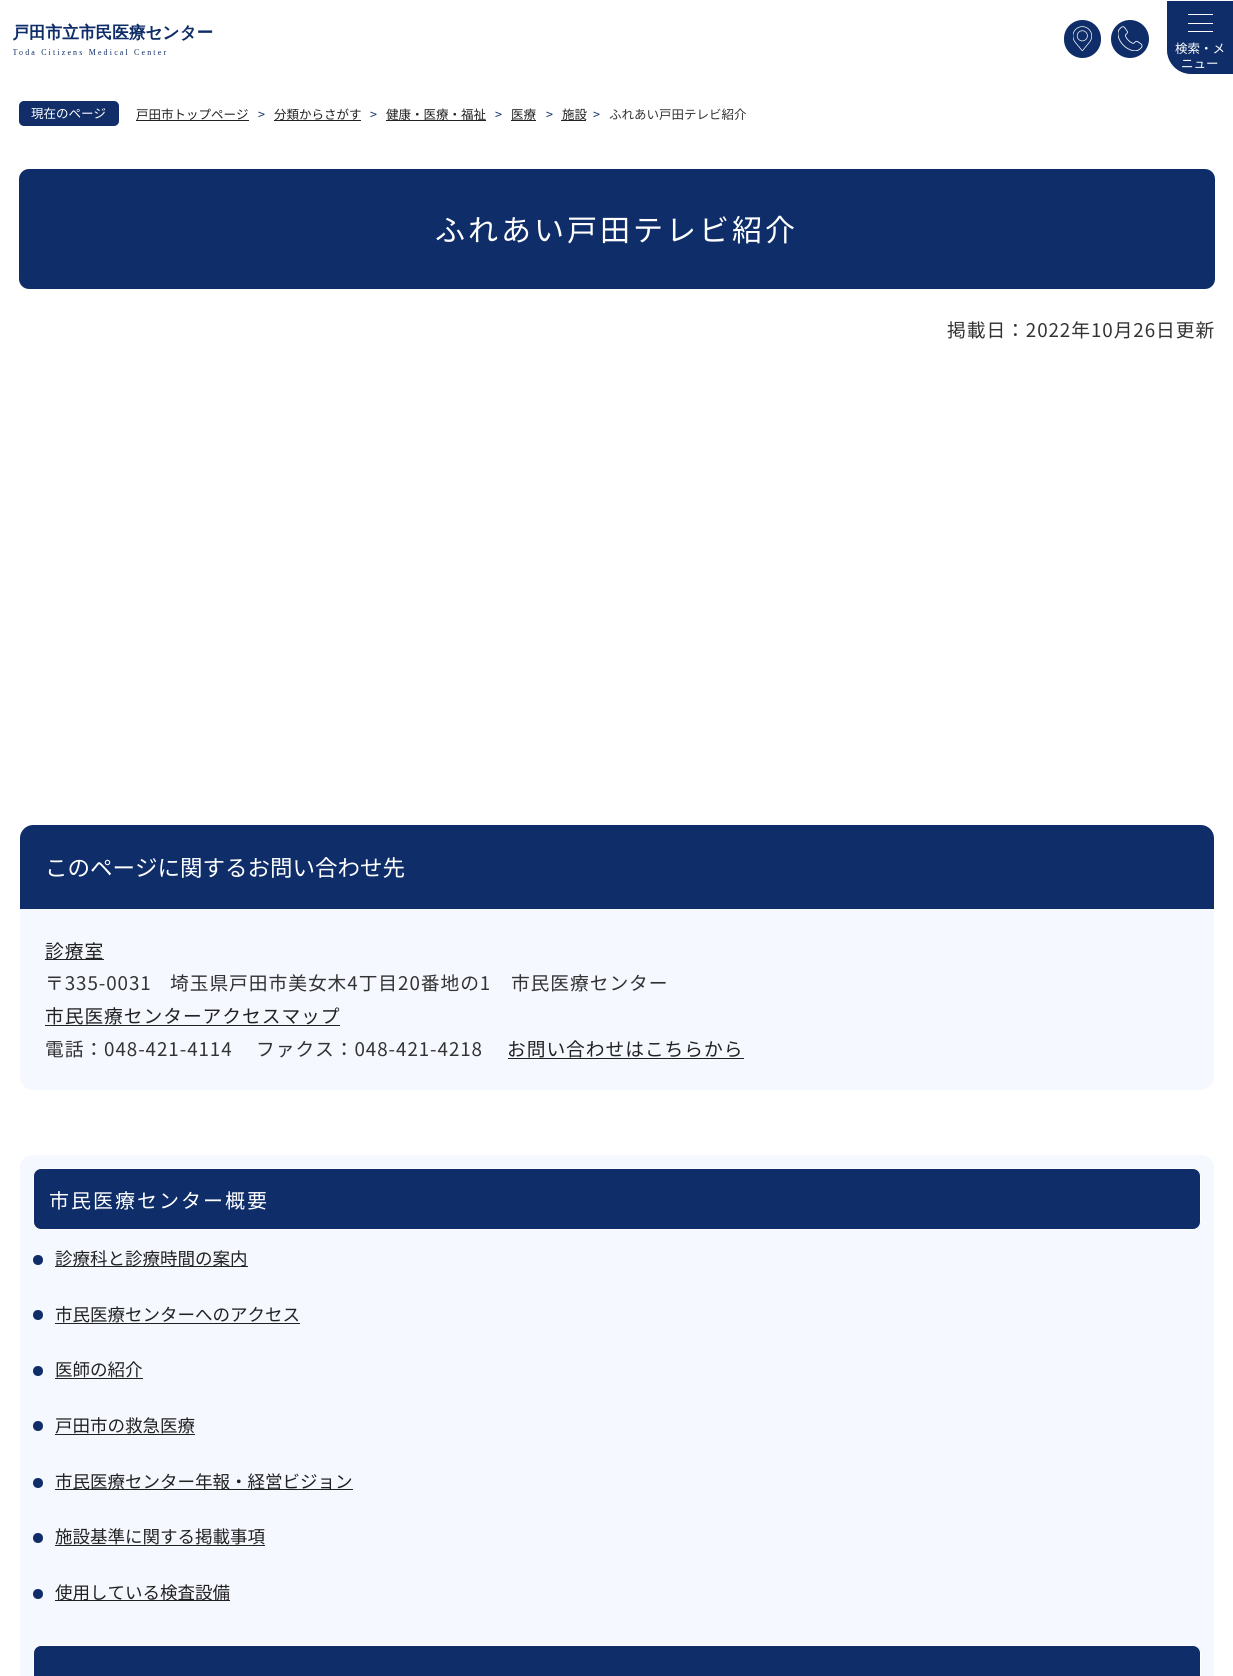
#include <cairo.h>
#include <math.h>
#include <stddef.h>

static cairo_t *c;
static void C(unsigned color){cairo_set_source_rgb(c, (color >> 16) / 255.0, (color >> 8 & 255) / 255.0, (color & 255) / 255.0);}
static void F(const char *family, double size, int italic, int bold){cairo_select_font_face(c, family, italic ? CAIRO_FONT_SLANT_ITALIC : CAIRO_FONT_SLANT_NORMAL,bold ? CAIRO_FONT_WEIGHT_BOLD : CAIRO_FONT_WEIGHT_NORMAL);cairo_set_font_size(c, size);}
static void T(double x, double y, const char *s){cairo_move_to(c, x, y);cairo_show_text(c, s);}
static void L(double x, double y, const char *s, double letter, double word){cairo_move_to(c, x, y);while (*s) {char ch[5] = {0};int n = 0;do ch[n++] = *s++; while ((*s & 0xC0) == 0x80);cairo_show_text(c, ch);cairo_rel_move_to(c, letter + word * (*ch == ' '), 0);}}
static void R(double x, double y, double w, double h){cairo_rectangle(c, x, y, w, h);cairo_fill(c);}
static void Q(double x, double y, double w, double h, double r){cairo_new_sub_path(c);cairo_arc(c, x + w - r, y + h - r, r, 0, M_PI / 2);cairo_arc(c, x + r, y + h - r, r, M_PI / 2, M_PI);cairo_arc(c, x + r, y + r, r, M_PI, 1.5 * M_PI);cairo_arc(c, x + w - r, y + r, r, 1.5 * M_PI, 2 * M_PI);cairo_close_path(c);}
static void I(const char *path, double x, double y, double w, double h){cairo_surface_t *image = cairo_image_surface_create_from_png(path);cairo_save(c);cairo_set_source_surface(c, image, x, y);cairo_rectangle(c, x, y, w, h);cairo_fill(c);cairo_restore(c);cairo_surface_destroy(image);}
int main(void) {
cairo_surface_t *surface = cairo_image_surface_create(CAIRO_FORMAT_RGB24, 1233, 1676);
c = cairo_create(surface);
cairo_font_options_t *options = cairo_font_options_create();
cairo_font_options_set_hint_metrics(options, CAIRO_HINT_METRICS_OFF);
cairo_font_options_set_hint_style(options, CAIRO_HINT_STYLE_NONE);
cairo_set_font_options(c, options);
cairo_set_miter_limit(c, 4);
C(0xffffff);
cairo_paint(c);
I("1.png",13,23,200,32);
C(0x0f2e69);
Q(1064,20,37,38,18.5);
cairo_fill(c);
I("2.png",1073,26,19,25);
cairo_arc(c,1130,39,19,0,2 * M_PI);
cairo_fill(c);
I("3.png",1118,26,25,25);
cairo_new_path(c);
cairo_move_to(c,1166.5,.5);
cairo_line_to(c,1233.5,.5);
cairo_line_to(c,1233.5,74.5);
cairo_line_to(c,1191,74.5);
cairo_curve_to(c,1177.5,74.5,1166.5,63.5,1166.5,50);
cairo_close_path(c);
cairo_fill_preserve(c);
C(0xffffff);
cairo_set_line_width(c,1);
cairo_stroke(c);
R(1188,23,25,1);
R(1188,14,25,1);
R(1188,31,25,1);
F("Noto Sans JP",12.5,0,0);
T(1175,53,"検索・メ");
T(1181,68,"ニュー");
C(0x112e69);
Q(19,101,100,25,5);
cairo_fill(c);
C(0xffffff);
T(31,118,"現在のページ");
C(0x222222);
T(136,119,"戸田市トップページ");
R(136,120,113,1);
C(0x0f2e69);
T(258,119,">");
C(0x222222);
R(274,120,87,1);
T(274,119,"分類からさがす");
C(0x0f2e69);
T(370,119,">");
C(0x222222);
T(386,119,"健康・医療・福祉");
R(386,120,100,1);
C(0x0f2e69);
T(495,119,">");
C(0x222222);
T(511,119,"医療");
R(511,120,25,1);
C(0x0f2e69);
T(546,119,">");
C(0x222222);
T(562,119,"施設");
R(561,120,25,1);
C(0x0f2e69);
T(593,119,">");
C(0x333333);
T(609,119,"ふれあい戸田テレビ紹介");
C(0x0f2e69);
Q(19,169,1196,120,10);
cairo_fill(c);
F("Noto Sans JP",30,0,0);
C(0xffffff);
L(435,241,"ふれあい戸田テレビ紹介",3,0);
F("Noto Sans JP",18.75,0,0);
C(0x333333);
L(947,337,"掲載日：2022年10月26日更新",.95,0);
C(0x0f2e69);
cairo_new_path(c);
cairo_move_to(c,33,825);
cairo_line_to(c,1201,825);
cairo_curve_to(c,1208,825,1214,831,1214,838);
cairo_line_to(c,1214,909);
cairo_line_to(c,20,909);
cairo_line_to(c,20,838);
cairo_curve_to(c,20,831,26,825,33,825);
cairo_close_path(c);
cairo_fill(c);
F("Noto Sans JP",22.5,0,0);
C(0xffffff);
T(45,876,"このページに関するお問い合わせ先");
C(0xf5f8ff);
cairo_new_path(c);
cairo_move_to(c,20,909);
cairo_line_to(c,1214,909);
cairo_line_to(c,1214,1077);
cairo_curve_to(c,1214,1084,1208,1090,1201,1090);
cairo_line_to(c,33,1090);
cairo_curve_to(c,26,1090,20,1084,20,1077);
cairo_close_path(c);
cairo_fill(c);
C(0x222222);
R(45,959,59,1);
F("Noto Sans JP",18.75,0,0);
L(45,958,"診療室",.95,0);
C(0x333333);
L(45,990,"〒335-0031",.95,0);
L(170,990,"埼玉県戸田市美女木4丁目20番地の1　市民医療センター",.95,0);
C(0x222222);
L(45,1023,"市民医療センターアクセスマップ",.95,0);
R(45,1025,295,1);
C(0x333333);
L(45,1056,"電話：048-421-4114",.95,0);
L(256,1056,"ファクス：048-421-4218",.95,0);
C(0x222222);
L(507,1056,"お問い合わせはこちらから",.95,0);
R(508,1058,236,1);
C(0xf5f8ff);
Q(19.5,1154.5,1195,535,12.5);
cairo_fill_preserve(c);
C(0xffffff);
cairo_stroke(c);
C(0x0f2e69);
Q(33.5,1168.5,1167,61,7.5);
cairo_fill_preserve(c);
C(0xffffff);
cairo_stroke(c);
F("Noto Sans JP",20,0,0);
L(49,1208,"市民医療センター概要",2,0);
C(0x0f2e69);
cairo_new_path(c);
cairo_arc(c,38,1260,5,0,2 * M_PI);
cairo_fill(c);
C(0x222222);
R(55,1266,193,1);
F("Noto Sans JP",17.5,0,0);
T(55,1265,"診療科と診療時間の案内");
C(0x0f2e69);
cairo_new_path(c);
cairo_arc(c,38,1315,5,0,2 * M_PI);
cairo_fill(c);
C(0x222222);
T(55,1321,"市民医療センターへのアクセス");
R(55,1323,245,1);
C(0x0f2e69);
cairo_new_path(c);
cairo_arc(c,38,1371,5,0,2 * M_PI);
cairo_fill(c);
C(0x222222);
T(55,1376,"医師の紹介");
R(55,1378,88,1);
C(0x0f2e69);
cairo_new_path(c);
cairo_arc(c,38,1426,5,0,2 * M_PI);
cairo_fill(c);
C(0x222222);
T(55,1432,"戸田市の救急医療");
R(55,1434,140,1);
C(0x0f2e69);
cairo_new_path(c);
cairo_arc(c,38,1483,5,0,2 * M_PI);
cairo_fill(c);
C(0x222222);
R(55,1489,298,1);
T(55,1488,"市民医療センター年報・経営ビジョン");
C(0x0f2e69);
cairo_new_path(c);
cairo_arc(c,38,1538,5,0,2 * M_PI);
cairo_fill(c);
C(0x222222);
T(55,1543,"施設基準に関する掲載事項");
R(55,1545,210,1);
C(0x0f2e69);
cairo_new_path(c);
cairo_arc(c,38,1594,5,0,2 * M_PI);
cairo_fill(c);
C(0x222222);
R(55,1600,175,1);
T(55,1599,"使用している検査設備");
C(0x0f2e69);
Q(33.5,1645.5,1167,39,7.5);
cairo_fill_preserve(c);
C(0xffffff);
cairo_stroke(c);
cairo_surface_write_to_png(surface, "o.png");
cairo_font_options_destroy(options);
cairo_destroy(c);
cairo_surface_destroy(surface);
return 0;
}
